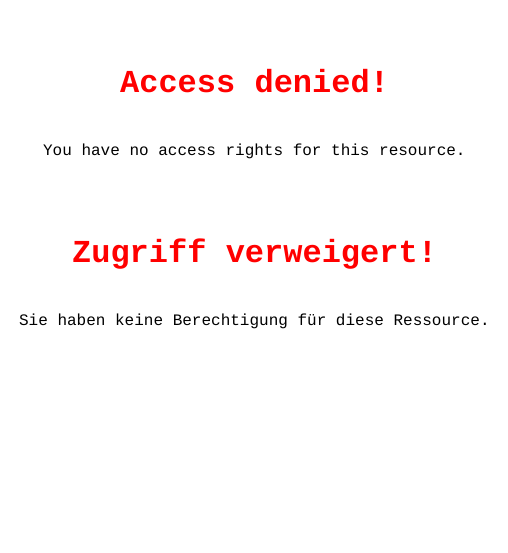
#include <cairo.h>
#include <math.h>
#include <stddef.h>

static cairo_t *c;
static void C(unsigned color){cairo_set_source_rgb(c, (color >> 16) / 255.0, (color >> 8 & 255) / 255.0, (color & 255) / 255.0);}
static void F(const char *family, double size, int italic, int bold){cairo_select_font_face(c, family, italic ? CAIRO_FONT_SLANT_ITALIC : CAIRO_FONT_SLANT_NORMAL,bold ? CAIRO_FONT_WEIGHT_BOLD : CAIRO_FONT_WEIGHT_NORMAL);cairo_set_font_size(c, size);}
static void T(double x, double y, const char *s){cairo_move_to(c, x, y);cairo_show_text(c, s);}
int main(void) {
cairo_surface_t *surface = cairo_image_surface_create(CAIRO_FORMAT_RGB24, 508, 553);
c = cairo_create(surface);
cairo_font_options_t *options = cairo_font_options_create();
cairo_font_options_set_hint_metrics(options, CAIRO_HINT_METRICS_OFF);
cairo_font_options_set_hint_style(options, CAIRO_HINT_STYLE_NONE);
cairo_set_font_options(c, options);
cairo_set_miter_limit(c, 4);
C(0xffffff);
cairo_paint(c);
F("Liberation Mono",32,0,1);
C(0xff0000);
T(120,92,"Access denied!");
F("Liberation Mono",16,0,0);
C(0x000000);
T(43,155,"You have no access rights for this resource.");
F("Liberation Mono",32,0,1);
C(0xff0000);
T(72,262,"Zugriff verweigert!");
F("Liberation Mono",16,0,0);
C(0x000000);
T(19,325,"Sie haben keine Berechtigung für diese Ressource.");
cairo_surface_write_to_png(surface, "o.png");
cairo_font_options_destroy(options);
cairo_destroy(c);
cairo_surface_destroy(surface);
return 0;
}
